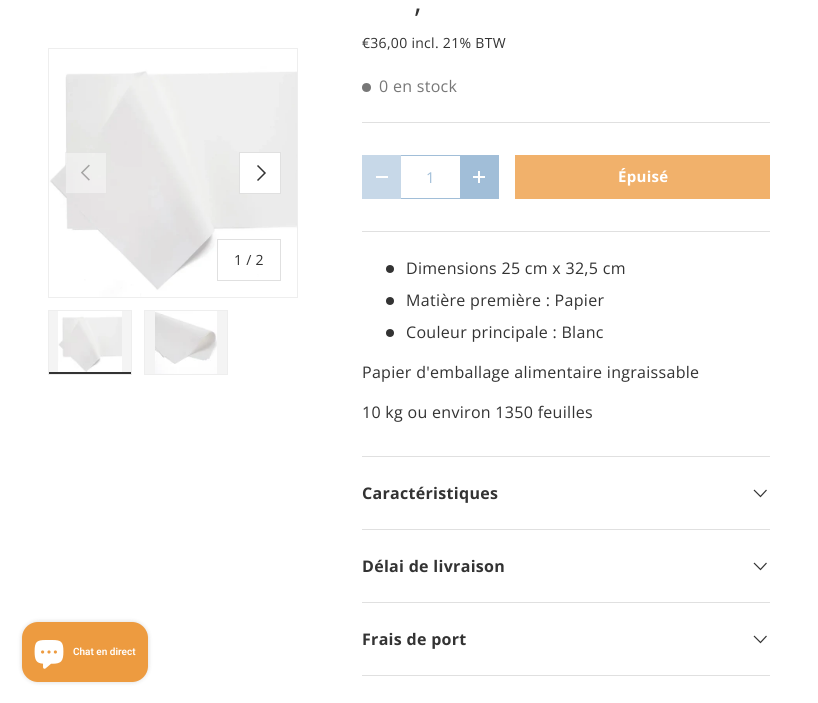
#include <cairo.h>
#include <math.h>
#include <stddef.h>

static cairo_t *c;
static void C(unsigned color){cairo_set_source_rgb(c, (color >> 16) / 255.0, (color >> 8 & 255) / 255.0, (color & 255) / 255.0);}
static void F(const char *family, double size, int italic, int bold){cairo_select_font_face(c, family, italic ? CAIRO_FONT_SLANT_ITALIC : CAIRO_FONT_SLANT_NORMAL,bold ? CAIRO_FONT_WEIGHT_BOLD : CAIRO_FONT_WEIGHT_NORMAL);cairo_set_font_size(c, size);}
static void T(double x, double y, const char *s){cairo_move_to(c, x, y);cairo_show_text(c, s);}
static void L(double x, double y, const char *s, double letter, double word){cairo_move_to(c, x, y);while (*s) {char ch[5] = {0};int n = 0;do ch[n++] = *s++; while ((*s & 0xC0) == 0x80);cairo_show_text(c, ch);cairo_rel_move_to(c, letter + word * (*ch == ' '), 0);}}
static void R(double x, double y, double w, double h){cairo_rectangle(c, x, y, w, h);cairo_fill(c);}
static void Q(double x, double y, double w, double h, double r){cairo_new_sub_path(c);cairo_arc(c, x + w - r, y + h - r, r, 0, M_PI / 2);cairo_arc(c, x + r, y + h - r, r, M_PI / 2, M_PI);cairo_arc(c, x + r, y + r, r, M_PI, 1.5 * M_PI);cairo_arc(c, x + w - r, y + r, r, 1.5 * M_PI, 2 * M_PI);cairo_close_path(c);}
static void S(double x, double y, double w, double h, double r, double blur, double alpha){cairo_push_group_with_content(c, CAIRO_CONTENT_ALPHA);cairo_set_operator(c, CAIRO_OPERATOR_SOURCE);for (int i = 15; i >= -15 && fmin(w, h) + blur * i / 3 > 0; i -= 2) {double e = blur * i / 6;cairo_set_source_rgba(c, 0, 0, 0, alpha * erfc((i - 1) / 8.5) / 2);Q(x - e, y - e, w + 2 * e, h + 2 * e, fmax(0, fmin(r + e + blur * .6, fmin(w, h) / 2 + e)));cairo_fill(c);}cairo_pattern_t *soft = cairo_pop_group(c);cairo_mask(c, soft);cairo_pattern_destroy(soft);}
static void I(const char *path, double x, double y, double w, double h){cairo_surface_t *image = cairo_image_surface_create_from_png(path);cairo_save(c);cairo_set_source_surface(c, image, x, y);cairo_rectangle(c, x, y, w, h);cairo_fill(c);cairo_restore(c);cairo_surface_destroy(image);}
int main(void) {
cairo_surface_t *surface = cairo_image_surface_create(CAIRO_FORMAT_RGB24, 818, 703);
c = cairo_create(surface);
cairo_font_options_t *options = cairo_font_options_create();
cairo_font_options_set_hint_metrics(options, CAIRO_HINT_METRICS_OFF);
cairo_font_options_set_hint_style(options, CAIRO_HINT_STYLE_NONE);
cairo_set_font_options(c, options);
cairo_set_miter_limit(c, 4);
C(0xffffff);
cairo_paint(c);
cairo_rectangle(c,48.5,48.5,249,249);
C(0xeeeeee);
cairo_set_line_width(c,1);
cairo_stroke(c);
I("1.png",49,49,248,248);
cairo_set_source_rgba(c,1,1,1,0.4);
R(65,152,42,42);
cairo_rectangle(c,65.5,152.5,41,41);
cairo_set_source_rgba(c,0.2,0.2,0.2,0.06);
cairo_stroke(c);
I("2.png",81,164,9,17);
C(0xffffff);
cairo_rectangle(c,239.5,152.5,41,41);
cairo_fill_preserve(c);
C(0xe0e0e0);
cairo_stroke(c);
cairo_new_path(c);
cairo_move_to(c,257.5,165.5);
cairo_line_to(c,265,173);
cairo_line_to(c,257.5,180.5);
C(0x333333);
cairo_set_line_width(c,1.5);
cairo_stroke(c);
C(0xffffff);
R(257,275,1,1);
cairo_rectangle(c,217.5,239.5,63,41);
C(0xe0e0e0);
cairo_set_line_width(c,1);
cairo_stroke(c);
F("Open Sans",14,0,0);
C(0x333333);
L(234,265,"1 / 2",.3,0);
C(0xf4f4f4);
R(49,311,82,61);
cairo_rectangle(c,48.5,310.5,83,64);
C(0xeeeeee);
cairo_stroke(c);
I("3.png",58,311,64,61);
C(0x333333);
R(49,372,82,2);
C(0xf4f4f4);
cairo_rectangle(c,144.5,310.5,83,64);
cairo_fill_preserve(c);
C(0xeeeeee);
cairo_stroke(c);
I("4.png",155,311,62,63);
F("Open Sans",30,0,0);
C(0x333333);
L(414,12,",",.3,0);
F("Open Sans",14,0,0);
L(362,48,"€36,00 incl. 21% BTW",.3,0);
C(0x777777);
cairo_new_path(c);
cairo_arc(c,366.5,87.5,4.5,0,2 * M_PI);
cairo_fill(c);
F("Open Sans",16,0,0);
L(379,92,"0 en stock",.3,0);
C(0xe0e0e0);
R(362,122,408,1);
C(0xc7d8e8);
R(362,155,39,44);
C(0xffffff);
R(376,176,12,2);
C(0xa1bed8);
R(401,198,59,1);
R(401,155,59,1);
F("Open Sans",15,0,0);
T(426,183,"1");
R(460,155,39,44);
C(0xffffff);
R(473,176,12,2);
R(478,171,2,12);
C(0xf1b16b);
R(515,155,255,44);
F("Open Sans",15,0,1);
C(0xffffff);
L(618,182,"Épuisé",.3,0);
C(0xe0e0e0);
R(362,231,408,1);
C(0x333333);
cairo_new_path(c);
cairo_arc(c,390,269,4,0,2 * M_PI);
cairo_fill(c);
F("Open Sans",16,0,0);
L(406,274,"Dimensions 25 cm x 32,5 cm",.3,0);
cairo_new_path(c);
cairo_arc(c,390,301,4,0,2 * M_PI);
cairo_fill(c);
L(406,306,"Matière première : Papier",.3,0);
cairo_new_path(c);
cairo_arc(c,390,333,4,0,2 * M_PI);
cairo_fill(c);
L(406,338,"Couleur principale : Blanc",.3,0);
L(362,378,"Papier d'emballage alimentaire ingraissable",.3,0);
L(362,418,"10 kg ou environ 1350 feuilles",.3,0);
C(0xe0e0e0);
R(362,456,408,1);
R(362,529,408,1);
F("Open Sans",16,0,1);
C(0x333333);
L(362,499,"Caractéristiques",.3,0);
cairo_new_path(c);
cairo_move_to(c,766.5,490);
cairo_line_to(c,760.5,496.5);
cairo_line_to(c,754,490);
cairo_set_line_width(c,1.2);
cairo_stroke(c);
C(0xe0e0e0);
R(362,602,408,1);
C(0x333333);
L(362,572,"Délai de livraison",.3,0);
cairo_new_path(c);
cairo_move_to(c,766.5,563);
cairo_line_to(c,760.5,569.5);
cairo_line_to(c,754,563);
cairo_stroke(c);
C(0xe0e0e0);
R(362,675,408,1);
C(0x333333);
L(362,645,"Frais de port",.3,0);
cairo_new_path(c);
cairo_move_to(c,766.5,636);
cairo_line_to(c,760.5,642.5);
cairo_line_to(c,754,636);
cairo_stroke(c);
C(0x000000);
S(22,622,126,60,16,2.5,.15);
C(0xed9b40);
Q(22,622,126,60,16);
cairo_fill(c);
I("5.png",34,640,30,29);
F("Roboto SemiBold",10,0,0);
C(0xffffff);
T(73,655,"Chat en direct");
cairo_surface_write_to_png(surface, "o.png");
cairo_font_options_destroy(options);
cairo_destroy(c);
cairo_surface_destroy(surface);
return 0;
}
